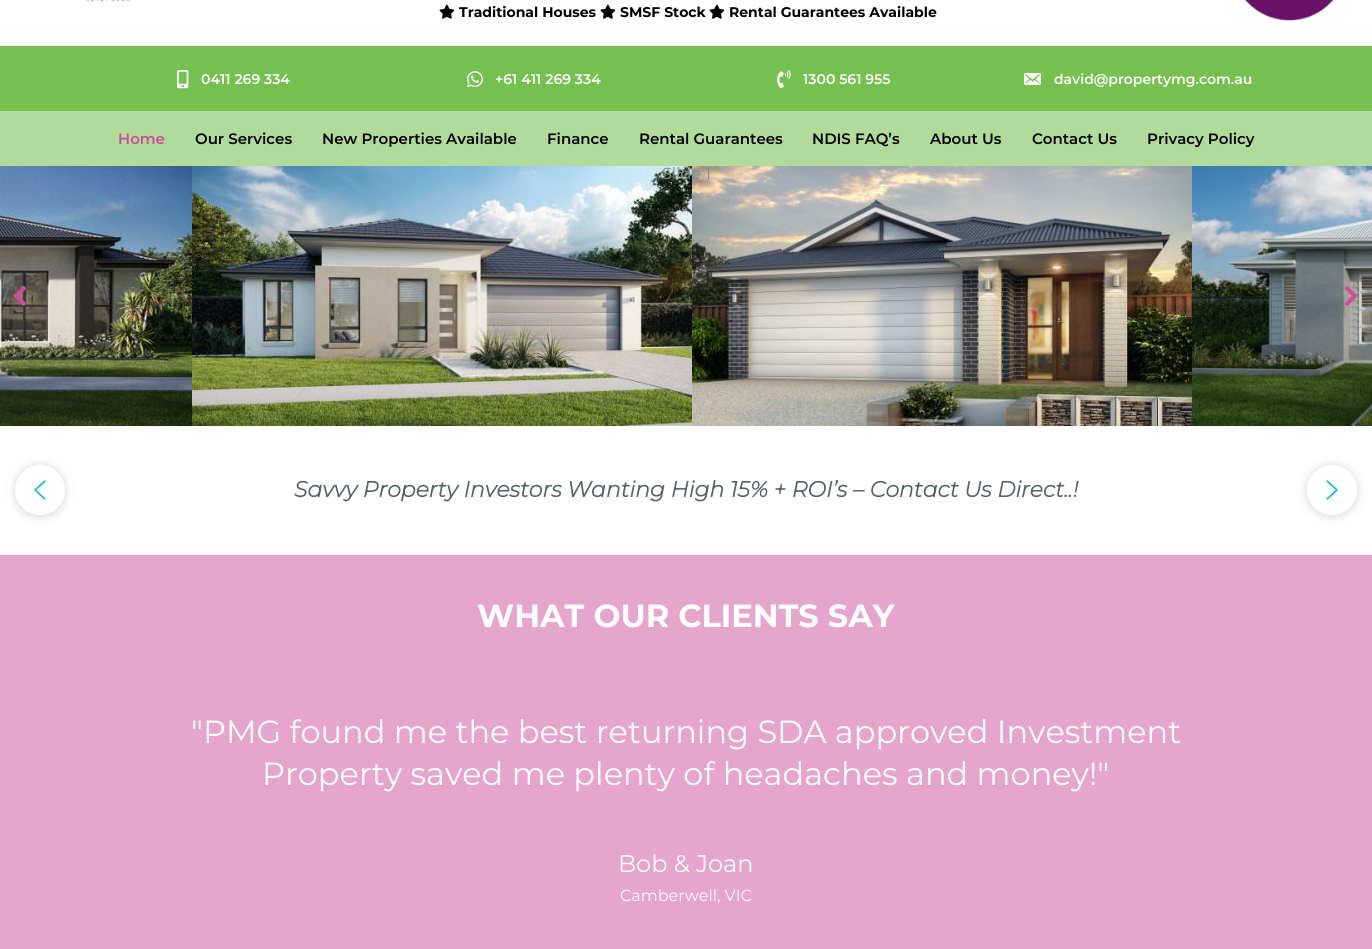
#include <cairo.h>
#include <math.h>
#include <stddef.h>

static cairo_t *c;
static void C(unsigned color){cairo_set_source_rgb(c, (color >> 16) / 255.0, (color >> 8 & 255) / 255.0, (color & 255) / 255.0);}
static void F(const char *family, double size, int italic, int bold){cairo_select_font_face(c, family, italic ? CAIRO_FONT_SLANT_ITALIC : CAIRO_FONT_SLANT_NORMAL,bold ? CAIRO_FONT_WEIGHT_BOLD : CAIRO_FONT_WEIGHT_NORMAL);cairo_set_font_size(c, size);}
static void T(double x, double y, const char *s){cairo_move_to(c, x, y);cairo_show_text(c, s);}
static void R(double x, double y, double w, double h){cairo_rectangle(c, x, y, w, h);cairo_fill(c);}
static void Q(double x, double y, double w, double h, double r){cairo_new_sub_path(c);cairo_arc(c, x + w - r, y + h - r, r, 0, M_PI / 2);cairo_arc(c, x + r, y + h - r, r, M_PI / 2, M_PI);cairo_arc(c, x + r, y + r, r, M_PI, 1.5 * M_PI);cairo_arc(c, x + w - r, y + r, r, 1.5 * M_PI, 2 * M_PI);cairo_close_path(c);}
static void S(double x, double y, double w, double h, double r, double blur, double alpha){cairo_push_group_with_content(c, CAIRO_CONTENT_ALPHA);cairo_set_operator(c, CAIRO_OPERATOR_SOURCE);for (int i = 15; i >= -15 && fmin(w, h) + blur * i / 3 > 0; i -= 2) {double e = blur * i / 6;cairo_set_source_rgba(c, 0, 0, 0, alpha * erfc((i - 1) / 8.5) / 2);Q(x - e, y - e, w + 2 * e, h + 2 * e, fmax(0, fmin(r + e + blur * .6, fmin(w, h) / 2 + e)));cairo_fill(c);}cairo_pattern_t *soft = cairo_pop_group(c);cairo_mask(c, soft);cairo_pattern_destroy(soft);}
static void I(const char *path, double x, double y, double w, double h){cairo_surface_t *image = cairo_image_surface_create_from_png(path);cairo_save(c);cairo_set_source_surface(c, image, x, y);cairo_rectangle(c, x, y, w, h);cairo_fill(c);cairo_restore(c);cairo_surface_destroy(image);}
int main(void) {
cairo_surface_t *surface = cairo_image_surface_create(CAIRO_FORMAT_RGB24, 1372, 949);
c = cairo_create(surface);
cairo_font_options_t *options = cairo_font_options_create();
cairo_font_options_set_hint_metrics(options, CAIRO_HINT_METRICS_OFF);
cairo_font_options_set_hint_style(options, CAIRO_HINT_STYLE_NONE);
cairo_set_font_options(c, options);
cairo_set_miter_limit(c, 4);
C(0xffffff);
cairo_paint(c);
I("1.png",86,0,44,1);
I("2.png",439,4,16,15);
F("Montserrat",14,0,1);
C(0x000000);
T(459,17,"Traditional Houses");
I("2.png",600,4,16,15);
T(620,17,"SMSF Stock");
I("2.png",709,4,16,15);
T(729,17,"Rental Guarantees Available");
I("3.png",1245,0,89,21);
C(0x75c04e);
R(0,46,1372,65);
I("4.png",177,70,12,19);
F("Montserrat SemiBold",14,0,0);
C(0xffffff);
T(201,84,"0411 269 334");
I("5.png",467,71,16,17);
T(495,84,"+61 411 269 334");
I("6.png",777,70,14,19);
T(803,84,"1300 561 955");
I("7.png",1024,73,17,12);
T(1054,84,"david@propertymg.com.au");
C(0xb0db9a);
R(0,111,1372,55);
F("Montserrat SemiBold",15,0,0);
C(0xce4d9b);
T(118,144,"Home");
C(0x000000);
T(195,144,"Our Services");
T(322,144,"New Properties Available");
T(547,144,"Finance");
T(639,144,"Rental Guarantees");
T(812,144,"NDIS FAQ’s");
T(930,144,"About Us");
T(1032,144,"Contact Us");
T(1147,144,"Privacy Policy");
I("8.png",0,166,1372,260);
F("Montserrat",16,0,0);
C(0x838d85);
T(662,179,"Slide 1");
I("9.png",14,286,12,20);
I("10.png",1345,286,12,20);
C(0x000000);
S(15,466,50,50,25,5,.17);
C(0xffffff);
cairo_arc(c,40,490,25,0,2 * M_PI);
cairo_fill(c);
I("11.png",34,480,12,20);
F("Montserrat",22,1,1);
C(0x576164);
T(294,497,"Savvy Property Investors Wanting High 15% + ROI’s – Contact Us Direct..!");
C(0x000000);
S(1307,466,50,50,25,5,.17);
C(0xffffff);
cairo_arc(c,1332,490,25,0,2 * M_PI);
cairo_fill(c);
I("12.png",1326,480,12,20);
C(0xe6a5cc);
R(0,555,1372,394);
F("Montserrat",32,0,1);
C(0xffffff);
T(477,627,"WHAT OUR CLIENTS SAY");
F("Montserrat",32,0,0);
T(191,743,"\"PMG found me the best returning SDA approved Investment");
T(262,785,"Property saved me plenty of headaches and money!\"");
F("Montserrat",24,0,0);
T(618,872,"Bob & Joan");
F("Montserrat",16,0,0);
T(620,901,"Camberwell, VIC");
cairo_surface_write_to_png(surface, "o.png");
cairo_font_options_destroy(options);
cairo_destroy(c);
cairo_surface_destroy(surface);
return 0;
}
